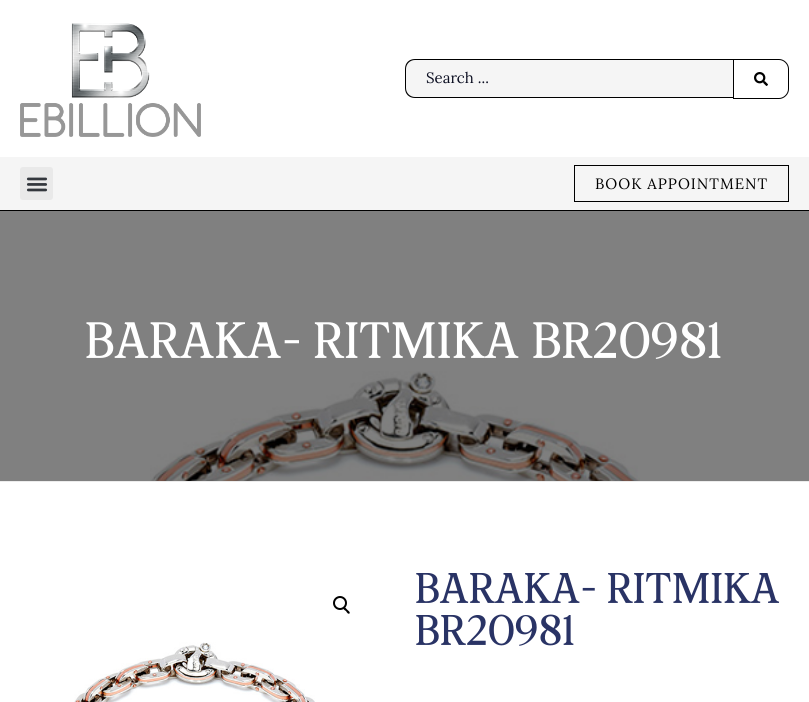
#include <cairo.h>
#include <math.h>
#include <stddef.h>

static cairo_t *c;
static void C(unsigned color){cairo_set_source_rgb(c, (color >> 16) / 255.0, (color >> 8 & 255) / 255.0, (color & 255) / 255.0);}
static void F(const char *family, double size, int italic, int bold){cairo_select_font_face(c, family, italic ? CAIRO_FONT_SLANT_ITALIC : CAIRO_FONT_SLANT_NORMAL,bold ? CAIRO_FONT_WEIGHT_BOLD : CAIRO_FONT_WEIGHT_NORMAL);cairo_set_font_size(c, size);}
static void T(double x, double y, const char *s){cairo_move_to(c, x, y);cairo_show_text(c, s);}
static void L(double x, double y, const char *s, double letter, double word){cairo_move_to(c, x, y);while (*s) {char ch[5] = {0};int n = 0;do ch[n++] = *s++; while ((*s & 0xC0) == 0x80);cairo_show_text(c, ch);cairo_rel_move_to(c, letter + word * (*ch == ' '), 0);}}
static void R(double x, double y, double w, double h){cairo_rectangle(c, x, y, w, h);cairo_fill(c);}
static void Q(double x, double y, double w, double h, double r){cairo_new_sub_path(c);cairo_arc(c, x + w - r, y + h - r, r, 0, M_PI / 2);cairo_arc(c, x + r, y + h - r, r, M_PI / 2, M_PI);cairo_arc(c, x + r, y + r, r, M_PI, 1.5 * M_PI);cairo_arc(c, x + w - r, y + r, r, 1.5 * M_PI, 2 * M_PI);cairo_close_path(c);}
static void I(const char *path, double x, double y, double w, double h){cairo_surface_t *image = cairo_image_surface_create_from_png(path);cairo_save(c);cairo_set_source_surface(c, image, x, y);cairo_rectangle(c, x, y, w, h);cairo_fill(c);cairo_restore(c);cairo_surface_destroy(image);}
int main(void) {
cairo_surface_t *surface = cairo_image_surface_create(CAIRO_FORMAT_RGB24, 809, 702);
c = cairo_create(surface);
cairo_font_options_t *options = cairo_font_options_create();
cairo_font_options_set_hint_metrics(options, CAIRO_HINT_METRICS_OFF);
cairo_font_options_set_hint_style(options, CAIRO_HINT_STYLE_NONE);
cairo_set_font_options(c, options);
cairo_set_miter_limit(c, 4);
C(0xffffff);
cairo_paint(c);
C(0x808080);
R(0,211,809,270);
I("1.png",20,23,181,114);
C(0xf5f5f5);
cairo_new_path(c);
cairo_move_to(c,415,60);
cairo_line_to(c,733,60);
cairo_line_to(c,733,97);
cairo_line_to(c,415,97);
cairo_curve_to(c,410,97,406,93,406,88);
cairo_line_to(c,406,69);
cairo_curve_to(c,406,64,410,60,415,60);
cairo_close_path(c);
cairo_fill(c);
C(0x000000);
cairo_set_fill_rule(c,CAIRO_FILL_RULE_EVEN_ODD);
cairo_new_path(c);
cairo_move_to(c,415,59);
cairo_line_to(c,733,59);
cairo_line_to(c,733,98);
cairo_line_to(c,415,98);
cairo_curve_to(c,409,98,405,94,405,88);
cairo_line_to(c,405,69);
cairo_curve_to(c,405,63,409,59,415,59);
cairo_close_path(c);
cairo_move_to(c,415,60);
cairo_line_to(c,733,60);
cairo_line_to(c,733,97);
cairo_line_to(c,415,97);
cairo_curve_to(c,410,97,406,93,406,88);
cairo_line_to(c,406,69);
cairo_curve_to(c,406,64,410,60,415,60);
cairo_close_path(c);
cairo_fill(c);
F("Lora",15,0,0);
C(0x0d1023);
T(426,83,"Search ...");
cairo_new_path(c);
cairo_move_to(c,733.5,59.5);
cairo_line_to(c,779,59.5);
cairo_curve_to(c,784,59.5,788.5,64,788.5,69);
cairo_line_to(c,788.5,89);
cairo_curve_to(c,788.5,94,784,98.5,779,98.5);
cairo_line_to(c,733.5,98.5);
cairo_close_path(c);
C(0x000000);
cairo_set_line_width(c,1);
cairo_stroke(c);
I("2.png",754,72,14,14);
R(0,210,809,1);
C(0xf5f5f5);
R(0,157,809,53);
C(0xe9e9e9);
Q(20,167,33,33,3);
cairo_fill(c);
I("3.png",26,177,22,15);
cairo_rectangle(c,574.5,165.5,214,36);
C(0x000000);
cairo_stroke(c);
L(595,189,"BOOK APPOINTMENT",1,0);
I("4.png",150,371,490,110);
I("5.png",86,321,635,38);
C(0xececec);
R(0,481,809,1);
cairo_arc(c,340,603,6,0,2 * M_PI);
C(0x000000);
cairo_set_line_width(c,2);
cairo_stroke(c);
cairo_set_fill_rule(c,CAIRO_FILL_RULE_WINDING);
cairo_new_path(c);
cairo_move_to(c,343.5,607.5);
cairo_curve_to(c,345,606.5,346.5,609,347,609.5);
cairo_curve_to(c,348,610.5,350.5,612,349.5,613.5);
cairo_curve_to(c,348,614.5,346.5,612,346,611);
cairo_curve_to(c,345,610.5,342.5,609,343.5,607.5);
cairo_close_path(c);
cairo_fill(c);
I("6.png",74,642,241,60);
I("7.png",416,573,364,30);
I("8.png",416,614,158,32);
cairo_surface_write_to_png(surface, "o.png");
cairo_font_options_destroy(options);
cairo_destroy(c);
cairo_surface_destroy(surface);
return 0;
}
